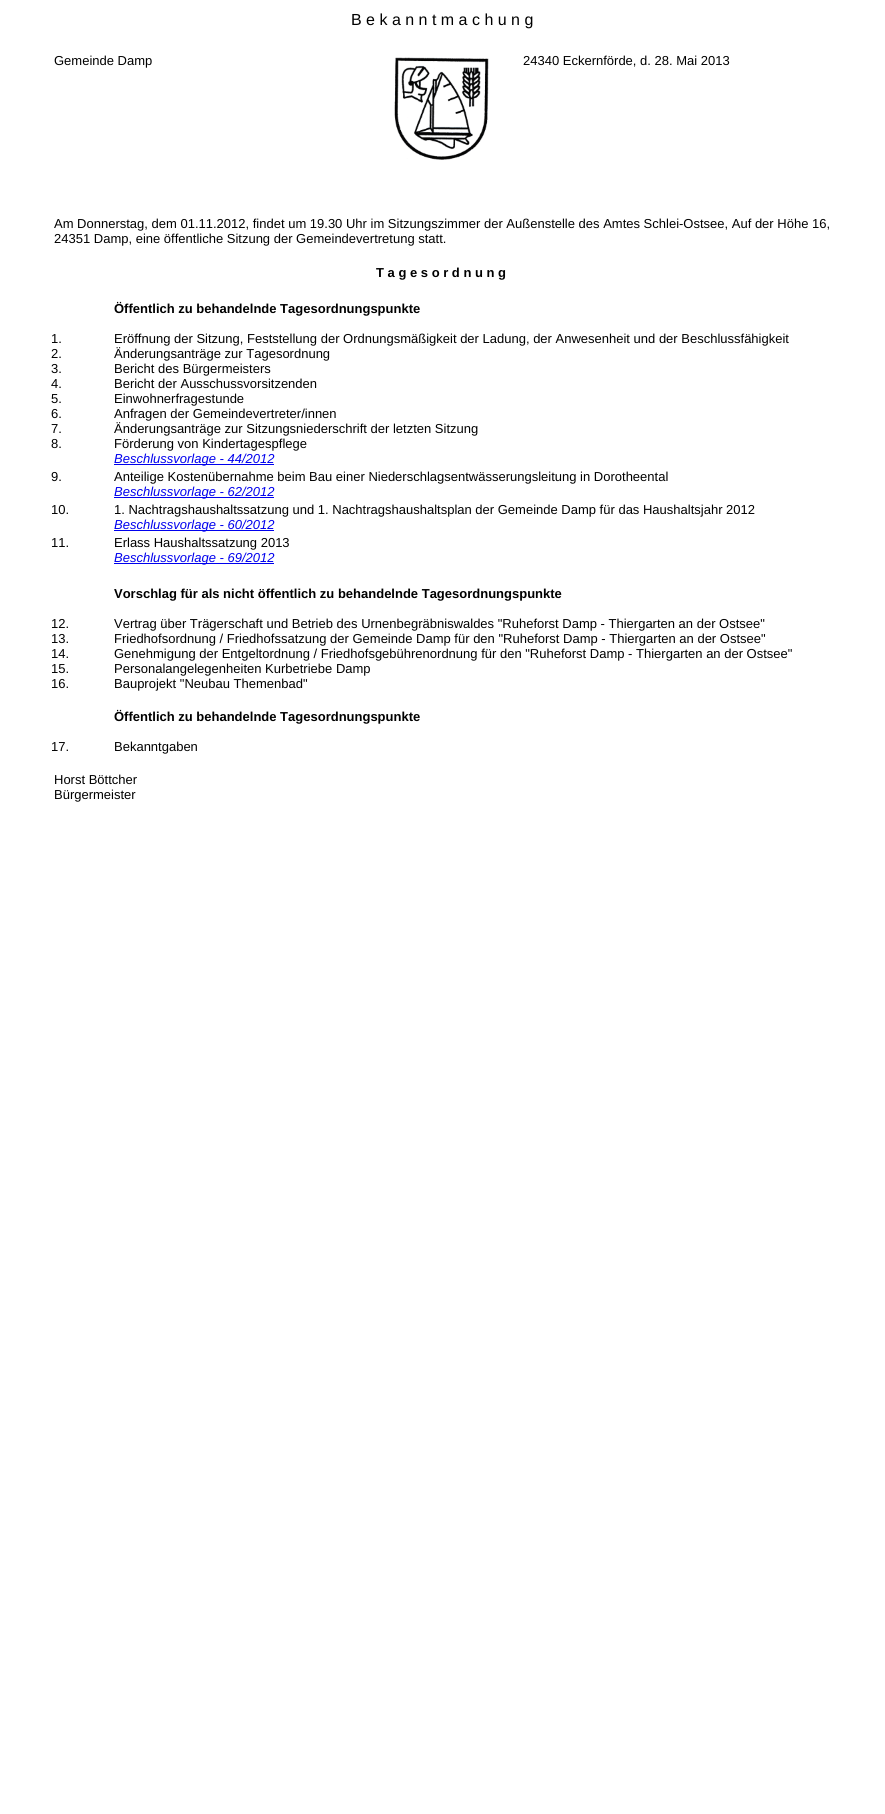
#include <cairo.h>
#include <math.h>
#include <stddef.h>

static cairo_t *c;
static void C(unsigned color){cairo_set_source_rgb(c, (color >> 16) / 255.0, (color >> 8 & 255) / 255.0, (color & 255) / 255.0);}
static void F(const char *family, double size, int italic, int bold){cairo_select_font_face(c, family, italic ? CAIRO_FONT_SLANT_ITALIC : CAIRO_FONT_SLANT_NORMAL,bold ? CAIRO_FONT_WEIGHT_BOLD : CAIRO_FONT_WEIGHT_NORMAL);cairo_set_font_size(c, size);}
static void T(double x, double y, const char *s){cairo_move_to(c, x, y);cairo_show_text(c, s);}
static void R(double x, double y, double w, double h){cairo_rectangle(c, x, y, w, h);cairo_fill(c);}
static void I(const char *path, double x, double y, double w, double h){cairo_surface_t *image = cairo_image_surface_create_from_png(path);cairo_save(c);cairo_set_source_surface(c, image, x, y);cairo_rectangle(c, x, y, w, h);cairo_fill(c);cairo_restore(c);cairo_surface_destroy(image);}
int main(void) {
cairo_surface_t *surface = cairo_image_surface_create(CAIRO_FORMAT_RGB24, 885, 1814);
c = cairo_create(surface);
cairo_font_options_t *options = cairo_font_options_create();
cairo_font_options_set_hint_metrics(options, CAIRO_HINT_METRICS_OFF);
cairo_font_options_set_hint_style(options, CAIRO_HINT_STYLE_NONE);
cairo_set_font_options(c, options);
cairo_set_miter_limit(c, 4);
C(0xffffff);
cairo_paint(c);
F("Liberation Sans",16,0,0);
C(0x000000);
T(351,25,"B e k a n n t m a c h u n g");
F("Liberation Sans",13,0,0);
T(54,65,"Gemeinde Damp");
I("1.png",394,57,95,103);
T(523,65,"24340 Eckernförde, d. 28. Mai 2013");
T(54,228,"Am Donnerstag, dem 01.11.2012, findet um 19.30 Uhr im Sitzungszimmer der Außenstelle des Amtes Schlei-Ostsee, Auf der Höhe 16,");
T(54,243,"24351 Damp, eine öffentliche Sitzung der Gemeindevertretung statt.");
F("Liberation Sans",13,0,1);
T(376,277,"T a g e s o r d n u n g");
T(114,313,"Öffentlich zu behandelnde Tagesordnungspunkte");
F("Liberation Sans",13,0,0);
T(51,343,"1.");
T(114,343,"Eröffnung der Sitzung, Feststellung der Ordnungsmäßigkeit der Ladung, der Anwesenheit und der Beschlussfähigkeit");
T(51,358,"2.");
T(114,358,"Änderungsanträge zur Tagesordnung");
T(51,373,"3.");
T(114,373,"Bericht des Bürgermeisters");
T(51,388,"4.");
T(114,388,"Bericht der Ausschussvorsitzenden");
T(51,403,"5.");
T(114,403,"Einwohnerfragestunde");
T(51,418,"6.");
T(114,418,"Anfragen der Gemeindevertreter/innen");
T(51,433,"7.");
T(114,433,"Änderungsanträge zur Sitzungsniederschrift der letzten Sitzung");
T(51,448,"8.");
T(114,448,"Förderung von Kindertagespflege");
C(0x0000ee);
R(114,464,160,1);
F("Liberation Sans",13,1,0);
T(114,463,"Beschlussvorlage - 44/2012");
F("Liberation Sans",13,0,0);
C(0x000000);
T(51,481,"9.");
T(114,481,"Anteilige Kostenübernahme beim Bau einer Niederschlagsentwässerungsleitung in Dorotheental");
C(0x0000ee);
R(114,497,160,1);
F("Liberation Sans",13,1,0);
T(114,496,"Beschlussvorlage - 62/2012");
F("Liberation Sans",13,0,0);
C(0x000000);
T(51,514,"10.");
T(114,514,"1. Nachtragshaushaltssatzung und 1. Nachtragshaushaltsplan der Gemeinde Damp für das Haushaltsjahr 2012");
C(0x0000ee);
R(114,530,160,1);
F("Liberation Sans",13,1,0);
T(114,529,"Beschlussvorlage - 60/2012");
F("Liberation Sans",13,0,0);
C(0x000000);
T(51,547,"11.");
T(114,547,"Erlass Haushaltssatzung 2013");
C(0x0000ee);
R(114,563,160,1);
F("Liberation Sans",13,1,0);
T(114,562,"Beschlussvorlage - 69/2012");
F("Liberation Sans",13,0,1);
C(0x000000);
T(114,598,"Vorschlag für als nicht öffentlich zu behandelnde Tagesordnungspunkte");
F("Liberation Sans",13,0,0);
T(51,628,"12.");
T(114,628,"Vertrag über Trägerschaft und Betrieb des Urnenbegräbniswaldes \"Ruheforst Damp - Thiergarten an der Ostsee\"");
T(51,643,"13.");
T(114,643,"Friedhofsordnung / Friedhofssatzung der Gemeinde Damp für den \"Ruheforst Damp - Thiergarten an der Ostsee\"");
T(51,658,"14.");
T(114,658,"Genehmigung der Entgeltordnung / Friedhofsgebührenordnung für den \"Ruheforst Damp - Thiergarten an der Ostsee\"");
T(51,673,"15.");
T(114,673,"Personalangelegenheiten Kurbetriebe Damp");
T(51,688,"16.");
T(114,688,"Bauprojekt \"Neubau Themenbad\"");
F("Liberation Sans",13,0,1);
T(114,721,"Öffentlich zu behandelnde Tagesordnungspunkte");
F("Liberation Sans",13,0,0);
T(51,751,"17.");
T(114,751,"Bekanntgaben");
T(54,784,"Horst Böttcher");
T(54,799,"Bürgermeister");
cairo_surface_write_to_png(surface, "o.png");
cairo_font_options_destroy(options);
cairo_destroy(c);
cairo_surface_destroy(surface);
return 0;
}
